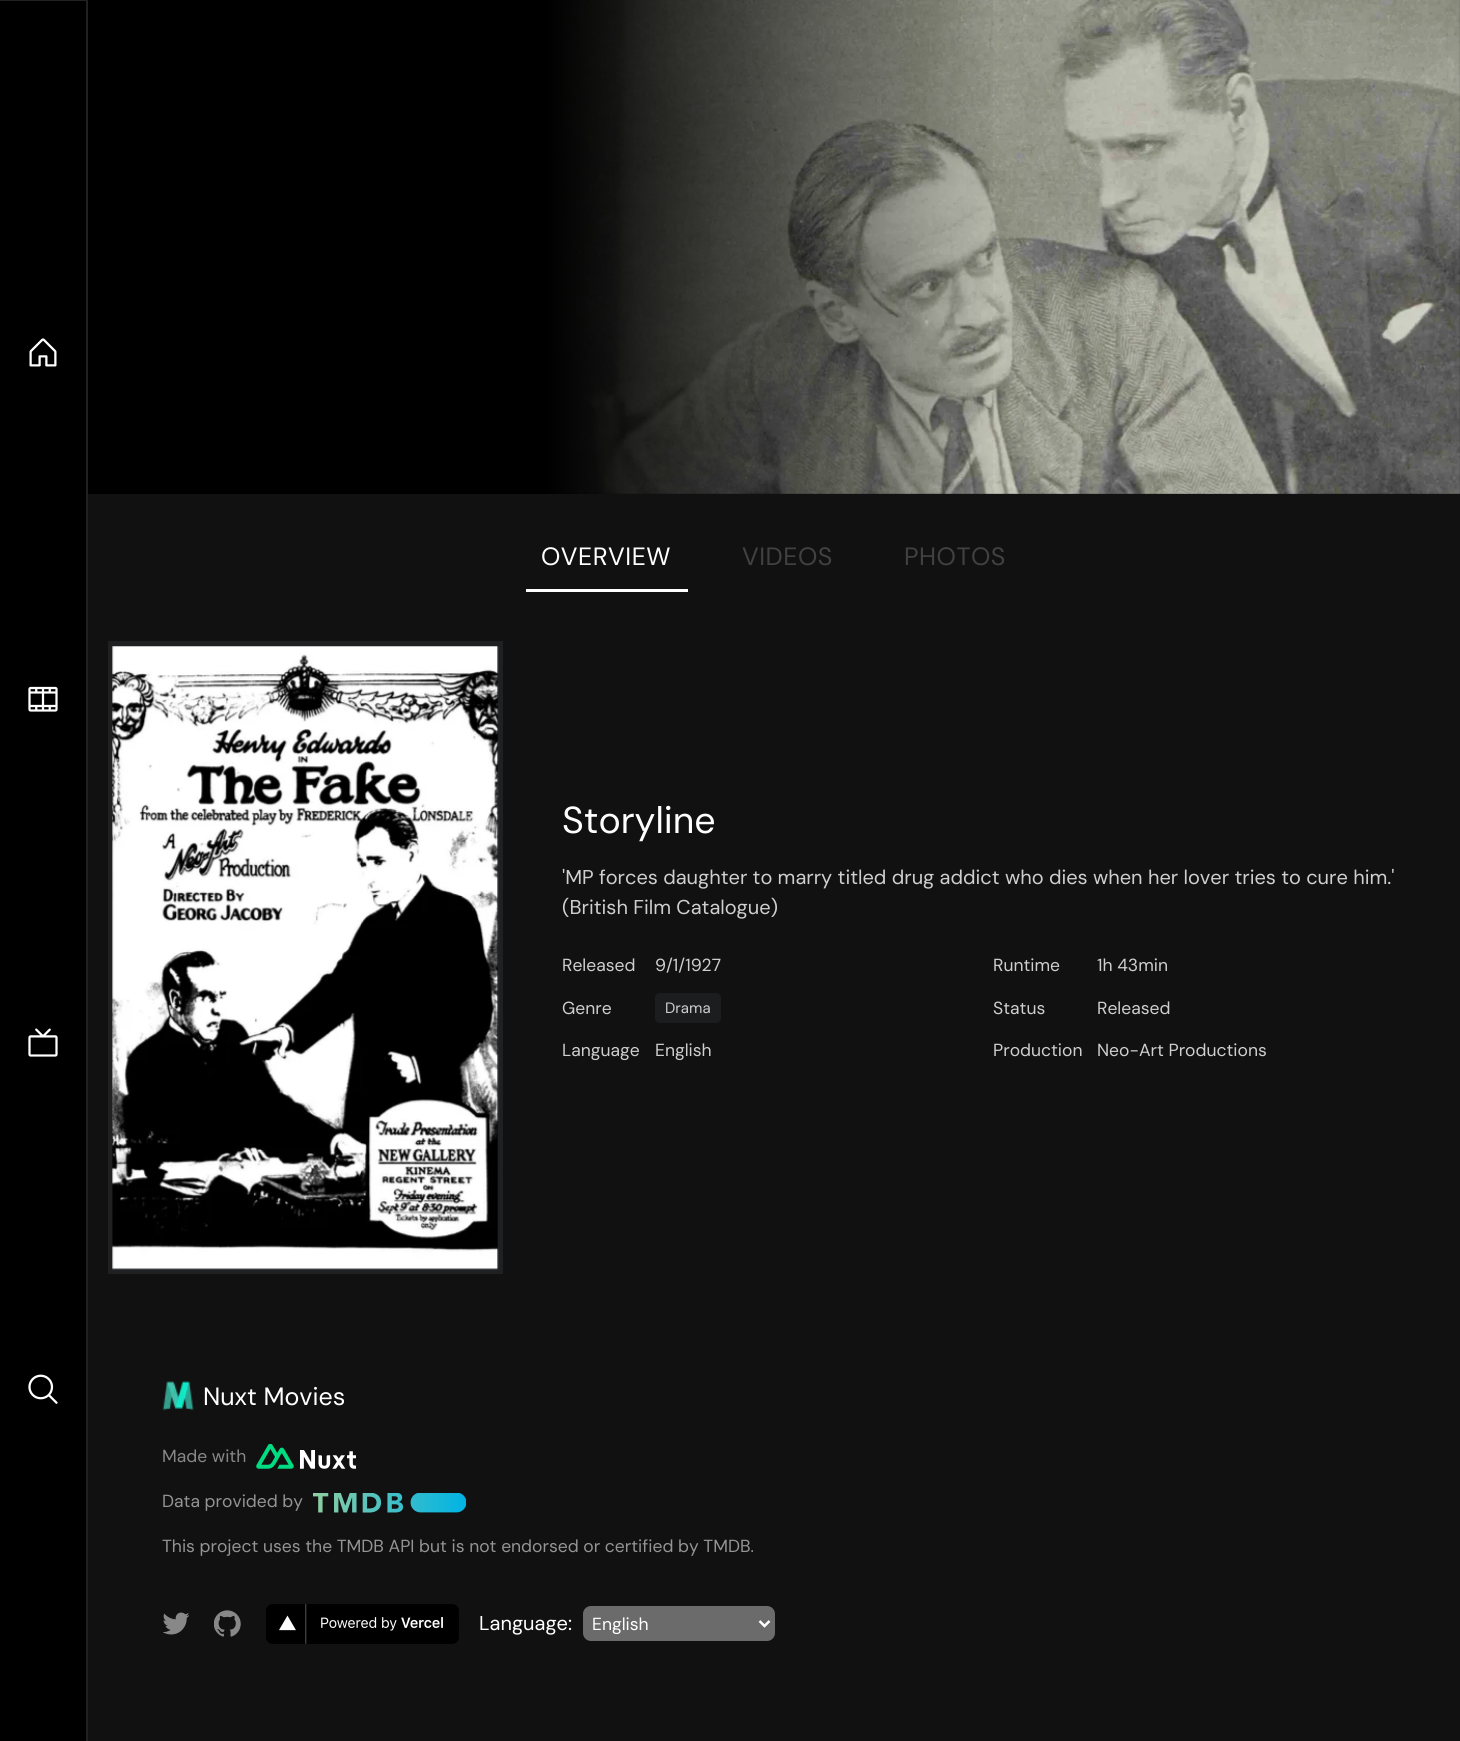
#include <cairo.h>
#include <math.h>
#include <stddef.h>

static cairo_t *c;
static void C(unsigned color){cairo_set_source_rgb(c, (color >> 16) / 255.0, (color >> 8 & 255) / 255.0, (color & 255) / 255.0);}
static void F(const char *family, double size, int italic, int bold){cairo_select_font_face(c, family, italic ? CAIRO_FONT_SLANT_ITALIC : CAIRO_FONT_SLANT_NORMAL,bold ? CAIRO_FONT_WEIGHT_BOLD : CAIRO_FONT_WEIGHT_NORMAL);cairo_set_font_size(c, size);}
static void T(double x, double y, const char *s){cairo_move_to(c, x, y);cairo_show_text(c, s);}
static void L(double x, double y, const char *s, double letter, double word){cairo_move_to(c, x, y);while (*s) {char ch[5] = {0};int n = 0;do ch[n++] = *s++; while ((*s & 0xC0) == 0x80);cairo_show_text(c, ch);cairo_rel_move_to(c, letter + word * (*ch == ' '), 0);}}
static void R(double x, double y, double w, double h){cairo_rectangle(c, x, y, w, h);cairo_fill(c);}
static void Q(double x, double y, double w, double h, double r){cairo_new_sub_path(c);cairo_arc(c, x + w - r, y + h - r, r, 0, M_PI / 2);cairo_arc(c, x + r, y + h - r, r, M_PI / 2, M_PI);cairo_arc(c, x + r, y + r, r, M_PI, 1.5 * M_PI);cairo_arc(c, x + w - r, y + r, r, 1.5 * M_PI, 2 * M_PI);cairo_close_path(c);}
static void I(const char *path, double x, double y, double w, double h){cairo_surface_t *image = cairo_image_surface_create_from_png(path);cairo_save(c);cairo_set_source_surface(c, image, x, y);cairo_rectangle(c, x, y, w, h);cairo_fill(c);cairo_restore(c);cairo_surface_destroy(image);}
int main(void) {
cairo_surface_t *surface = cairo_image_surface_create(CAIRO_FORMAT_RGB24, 1460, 1741);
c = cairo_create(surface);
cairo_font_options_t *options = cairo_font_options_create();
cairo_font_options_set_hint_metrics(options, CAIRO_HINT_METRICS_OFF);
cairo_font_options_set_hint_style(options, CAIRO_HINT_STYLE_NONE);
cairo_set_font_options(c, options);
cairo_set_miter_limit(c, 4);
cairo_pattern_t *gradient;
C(0x111111);
cairo_paint(c);
C(0x000000);
R(0,0,88,1741);
C(0x1f2123);
cairo_new_path(c);
cairo_move_to(c,0,0);
cairo_line_to(c,88,0);
cairo_line_to(c,86,1);
cairo_line_to(c,0,1);
cairo_close_path(c);
cairo_fill(c);
cairo_set_source_rgba(c,0.612,0.639,0.686,0.2);
cairo_new_path(c);
cairo_move_to(c,88,0);
cairo_line_to(c,88,1741);
cairo_line_to(c,86,1741);
cairo_line_to(c,86,1);
cairo_close_path(c);
cairo_fill(c);
I("1.png",29,338,28,29);
I("2.png",28,686,30,26);
I("3.png",28,1028,30,29);
I("4.png",28,1374,30,30);
C(0x000000);
R(548,0,912,494);
I("5.png",548,0,912,494);
gradient = cairo_pattern_create_linear(88,247,1003,247);
cairo_pattern_add_color_stop_rgba(gradient,0,0,0,0,1);
cairo_pattern_add_color_stop_rgba(gradient,.5,0,0,0,1);
cairo_pattern_add_color_stop_rgba(gradient,1,0,0,0,0);
cairo_set_source(c,gradient);
cairo_pattern_destroy(gradient);
R(88,0,905,494);
C(0xffffff);
R(526,589,162,3);
F("DM Sans",25,0,0);
L(541,565,"OVERVIEW",.5,0);
C(0x414141);
L(742,565,"VIDEOS",.5,0);
L(904,565,"PHOTOS",.5,0);
cairo_rectangle(c,110.5,643.5,390,628);
C(0x1f2021);
cairo_set_line_width(c,5);
cairo_stroke(c);
I("6.png",112,646,387,624);
F("DM Sans",37.5,0,0);
C(0xffffff);
T(562,833,"Storyline");
F("DM Sans",20,0,0);
C(0xcfcfcf);
T(562,884,"'MP forces daughter to marry titled drug addict who dies when her lover tries to cure him.'");
T(562,914,"(British Film Catalogue)");
F("DM Sans",17.5,0,0);
T(562,971,"Released");
T(655,971,"9/1/1927");
T(993,971,"Runtime");
T(1097,971,"1h 43min");
T(562,1014,"Genre");
C(0x1c1d1e);
Q(655,993,66,30,5);
cairo_fill(c);
F("DM Sans",15,0,0);
C(0xcfcfcf);
T(665,1013,"Drama");
F("DM Sans",17.5,0,0);
T(993,1014,"Status");
T(1097,1014,"Released");
T(562,1056,"Language");
T(655,1056,"English");
T(993,1056,"Production");
T(1097,1056,"Neo-Art Productions");
I("7.png",162,1381,32,30);
F("DM Sans",25,0,0);
C(0xffffff);
T(203,1405,"Nuxt Movies");
F("DM Sans",17.5,0,0);
C(0x888888);
T(162,1462,"Made with");
I("8.png",256,1444,100,25);
C(0x949494);
T(162,1507,"Data provided by");
I("9.png",313,1493,153,20);
T(162,1552,"This project uses the TMDB API but is not endorsed or certified by TMDB.");
I("10.png",163,1612,26,23);
I("11.png",214,1610,27,27);
I("12.png",266,1604,193,40);
F("DM Sans",20,0,0);
C(0xffffff);
T(479,1630,"Language:");
C(0x6b6b6b);
Q(583,1606,192,35,8);
cairo_fill(c);
cairo_new_path(c);
cairo_move_to(c,759.5,1621);
cairo_line_to(c,764.5,1626);
cairo_line_to(c,769.5,1621);
C(0xffffff);
cairo_set_line_width(c,2.5);
cairo_stroke(c);
F("DM Sans",17.5,0,0);
T(592,1630,"English");
cairo_surface_write_to_png(surface, "o.png");
cairo_font_options_destroy(options);
cairo_destroy(c);
cairo_surface_destroy(surface);
return 0;
}
